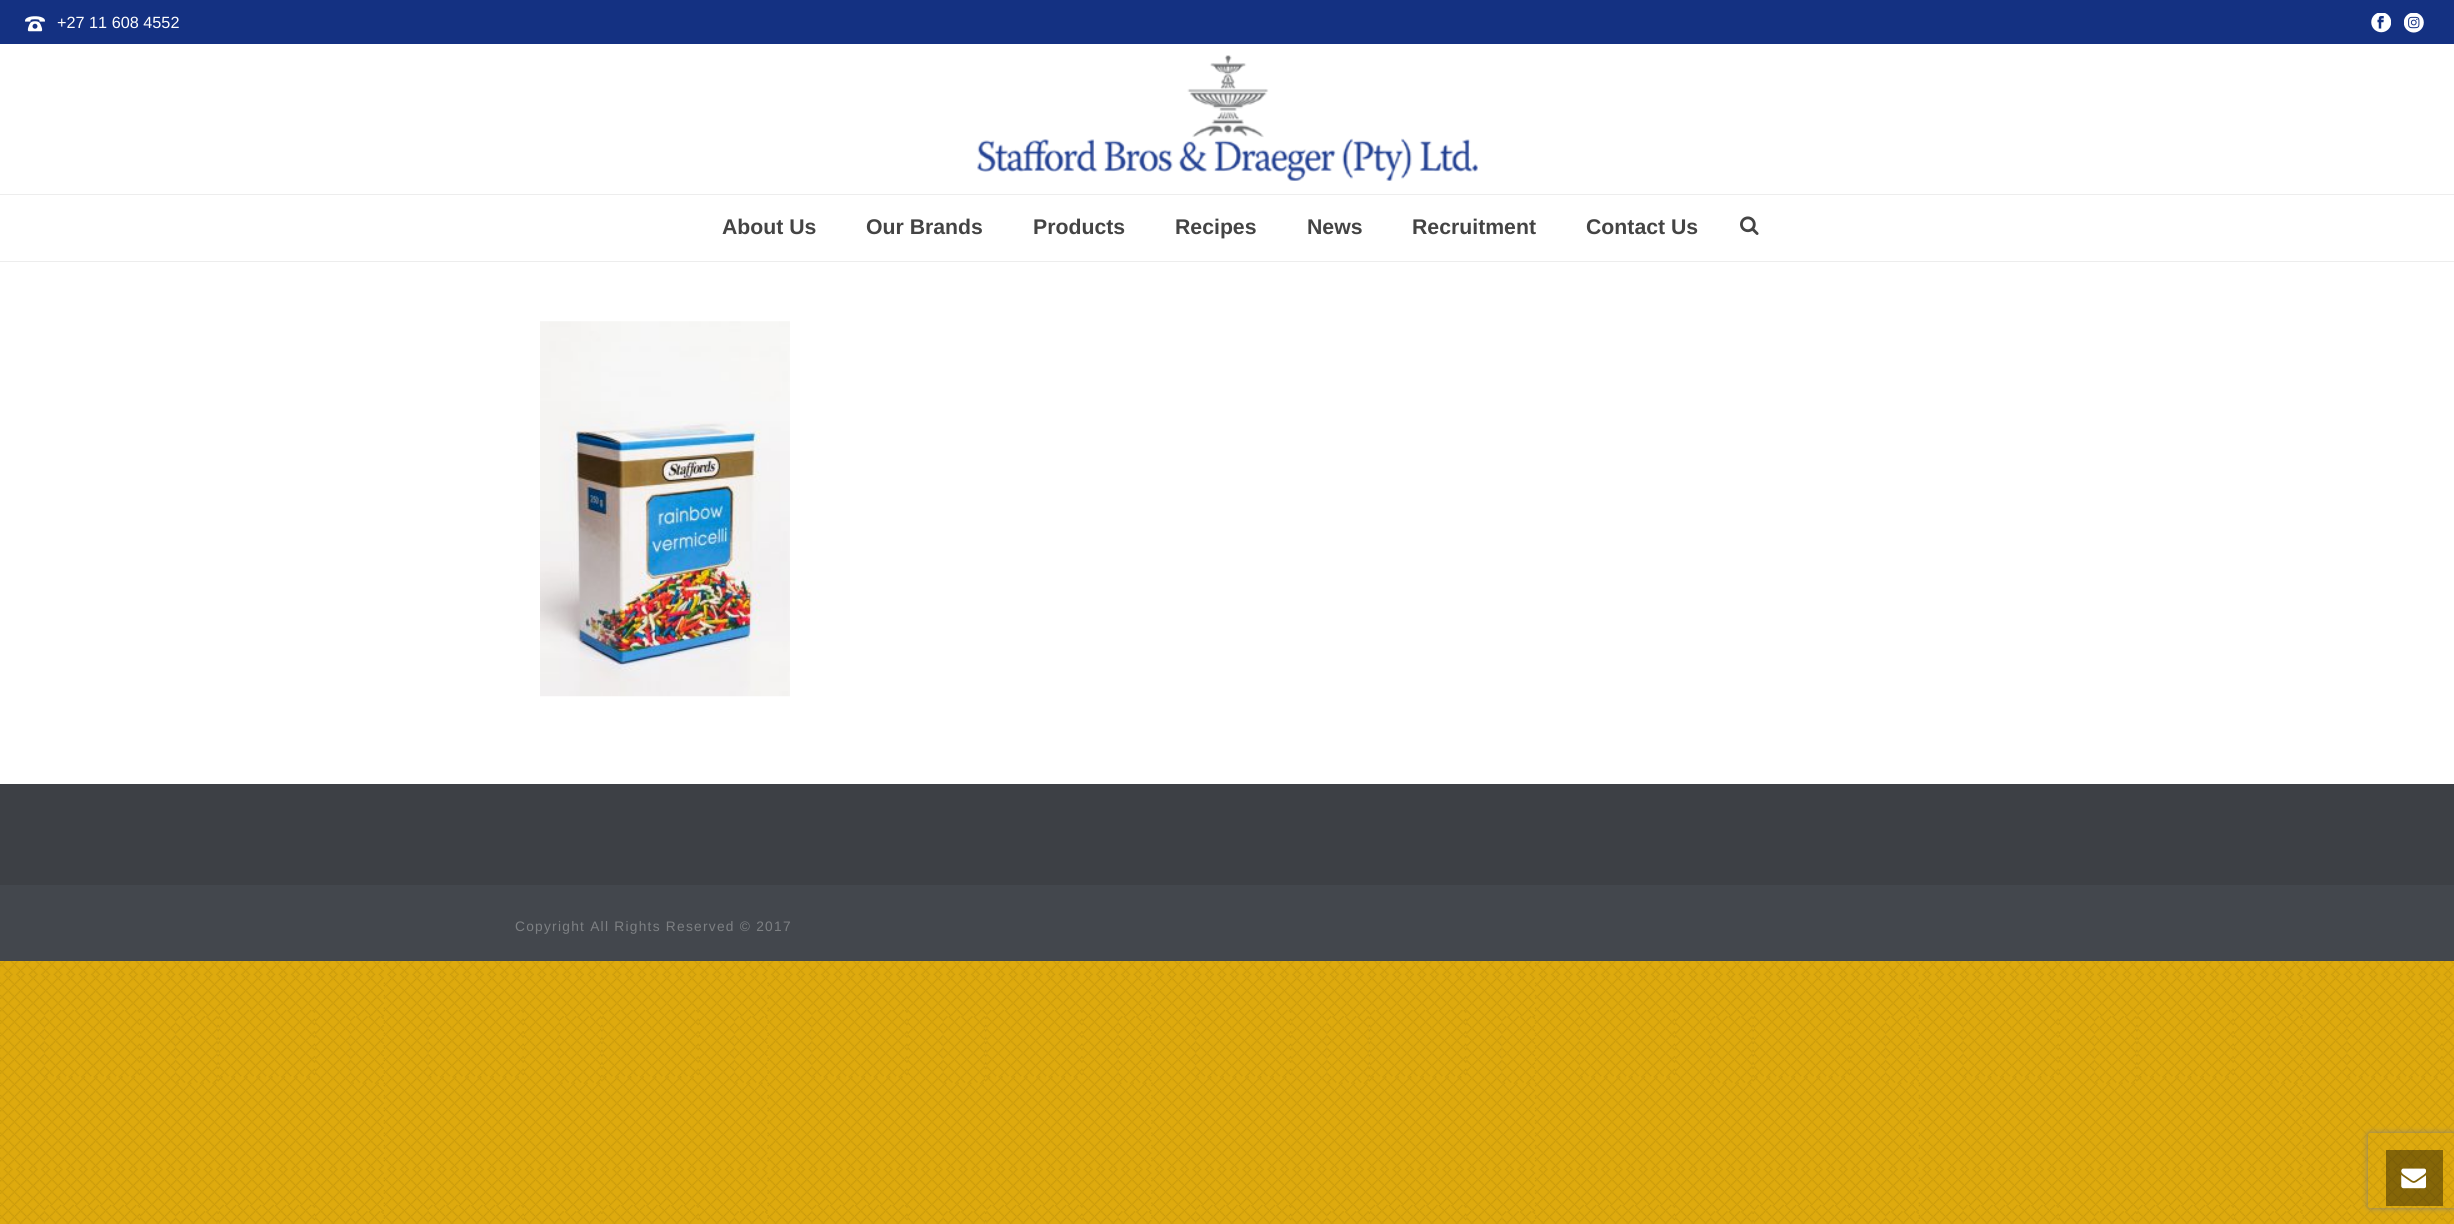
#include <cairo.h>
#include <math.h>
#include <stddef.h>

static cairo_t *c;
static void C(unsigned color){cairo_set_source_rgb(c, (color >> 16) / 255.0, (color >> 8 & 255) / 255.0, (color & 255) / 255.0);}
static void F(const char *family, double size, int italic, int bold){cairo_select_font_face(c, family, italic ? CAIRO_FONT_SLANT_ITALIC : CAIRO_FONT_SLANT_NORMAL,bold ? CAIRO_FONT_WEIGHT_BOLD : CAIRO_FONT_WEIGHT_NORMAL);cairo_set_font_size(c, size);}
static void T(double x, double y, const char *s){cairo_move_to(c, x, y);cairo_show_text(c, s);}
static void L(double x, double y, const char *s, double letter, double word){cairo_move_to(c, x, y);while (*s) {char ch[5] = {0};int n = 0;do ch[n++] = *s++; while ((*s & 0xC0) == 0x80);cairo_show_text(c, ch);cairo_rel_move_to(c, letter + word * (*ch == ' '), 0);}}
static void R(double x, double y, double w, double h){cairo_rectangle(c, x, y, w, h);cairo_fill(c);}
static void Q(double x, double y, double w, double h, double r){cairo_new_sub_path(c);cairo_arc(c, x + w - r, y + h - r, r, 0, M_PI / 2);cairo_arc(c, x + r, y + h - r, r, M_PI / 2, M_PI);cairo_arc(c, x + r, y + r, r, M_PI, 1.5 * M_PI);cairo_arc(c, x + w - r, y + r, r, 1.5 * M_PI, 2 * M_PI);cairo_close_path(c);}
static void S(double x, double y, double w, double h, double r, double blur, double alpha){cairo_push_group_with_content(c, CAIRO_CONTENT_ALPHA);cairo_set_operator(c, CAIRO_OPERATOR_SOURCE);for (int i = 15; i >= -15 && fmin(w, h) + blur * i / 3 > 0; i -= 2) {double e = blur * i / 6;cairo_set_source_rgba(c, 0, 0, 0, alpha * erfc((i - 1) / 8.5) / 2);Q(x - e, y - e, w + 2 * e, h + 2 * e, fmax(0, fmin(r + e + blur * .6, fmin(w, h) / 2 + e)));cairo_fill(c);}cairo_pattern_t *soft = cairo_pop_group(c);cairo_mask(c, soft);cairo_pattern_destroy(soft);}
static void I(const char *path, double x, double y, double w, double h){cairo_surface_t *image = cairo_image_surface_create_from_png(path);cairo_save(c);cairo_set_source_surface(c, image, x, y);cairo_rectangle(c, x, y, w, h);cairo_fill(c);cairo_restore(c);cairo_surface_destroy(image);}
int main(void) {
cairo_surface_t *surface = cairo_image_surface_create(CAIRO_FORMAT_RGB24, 2454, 1224);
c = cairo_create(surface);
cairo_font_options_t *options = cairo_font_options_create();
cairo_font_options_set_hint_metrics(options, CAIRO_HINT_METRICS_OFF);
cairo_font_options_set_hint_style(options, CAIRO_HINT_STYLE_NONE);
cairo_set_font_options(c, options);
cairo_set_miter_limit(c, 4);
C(0xffffff);
cairo_paint(c);
I("1.png",0,961,2454,263);
C(0x143182);
R(0,0,2454,44);
I("2.png",25,16,20,16);
F("Liberation Sans",16.25,0,0);
C(0xffffff);
T(57,28,"+27 11 608 4552");
I("3.png",2371,13,20,20);
I("4.png",2404,13,20,20);
C(0xededed);
R(0,261,2454,1);
I("5.png",977,55,501,126);
R(0,194,2454,1);
F("Liberation Sans",21.25,0,1);
C(0x444444);
T(722,234,"About Us");
T(866,234,"Our Brands");
T(1033,234,"Products");
T(1175,234,"Recipes");
T(1307,234,"News");
T(1412,234,"Recruitment");
T(1586,234,"Contact Us");
I("6.png",1740,216,19,19);
I("7.png",540,321,250,376);
C(0x3d4045);
R(0,784,2454,101);
C(0x43474d);
R(0,885,2454,76);
F("Liberation Sans",13.75,0,0);
C(0x7d8083);
L(515,931,"Copyright All Rights Reserved © 2017",1.25,0);
cairo_save(c);
cairo_set_fill_rule(c,CAIRO_FILL_RULE_EVEN_ODD);
cairo_new_path(c);
cairo_move_to(c,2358,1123);
cairo_line_to(c,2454,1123);
cairo_line_to(c,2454,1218);
cairo_line_to(c,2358,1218);
cairo_close_path(c);
cairo_move_to(c,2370.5,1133);
cairo_line_to(c,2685.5,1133);
cairo_curve_to(c,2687,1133,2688,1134,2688,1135.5);
cairo_line_to(c,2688,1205.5);
cairo_curve_to(c,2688,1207,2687,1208,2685.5,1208);
cairo_line_to(c,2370.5,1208);
cairo_curve_to(c,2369,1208,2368,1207,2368,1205.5);
cairo_line_to(c,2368,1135.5);
cairo_curve_to(c,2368,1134,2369,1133,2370.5,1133);
cairo_close_path(c);
cairo_clip(c);
C(0x808080);
S(2368,1133,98,75,2.5,3,1);
cairo_restore(c);
cairo_set_source_rgba(c,0,0,0,0.4);
R(2386,1150,57,56);
I("8.png",2401,1168,25,21);
cairo_surface_write_to_png(surface, "o.png");
cairo_font_options_destroy(options);
cairo_destroy(c);
cairo_surface_destroy(surface);
return 0;
}
